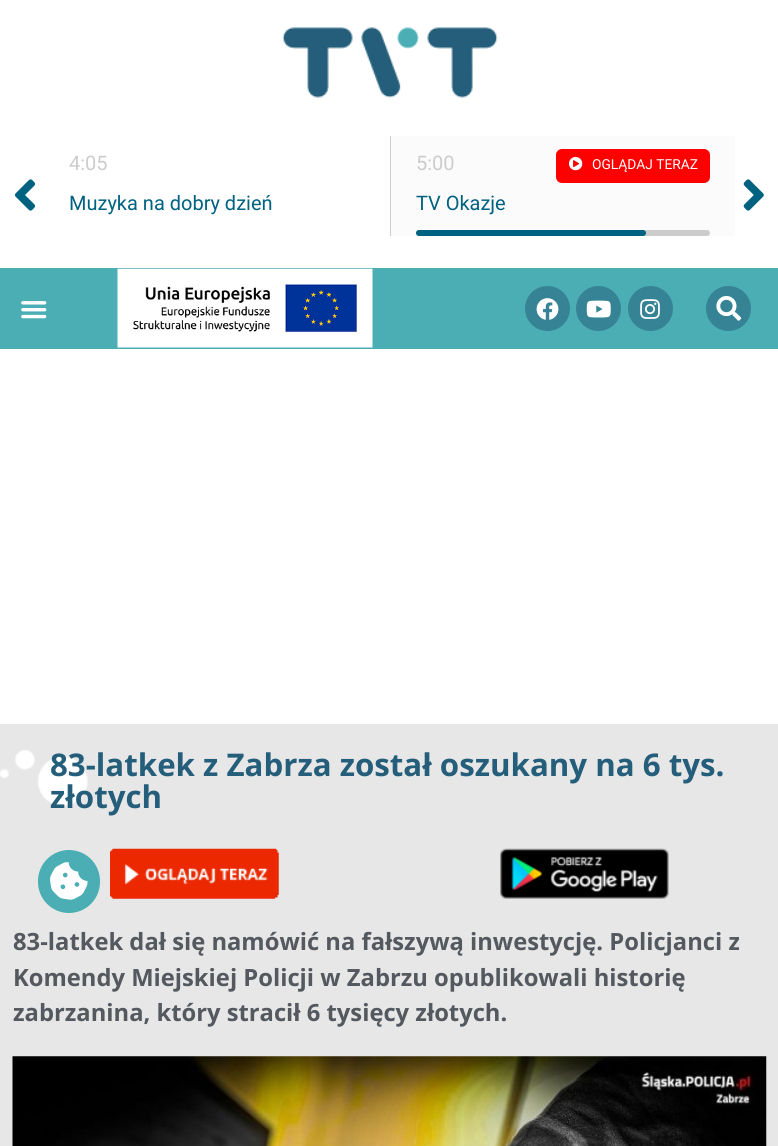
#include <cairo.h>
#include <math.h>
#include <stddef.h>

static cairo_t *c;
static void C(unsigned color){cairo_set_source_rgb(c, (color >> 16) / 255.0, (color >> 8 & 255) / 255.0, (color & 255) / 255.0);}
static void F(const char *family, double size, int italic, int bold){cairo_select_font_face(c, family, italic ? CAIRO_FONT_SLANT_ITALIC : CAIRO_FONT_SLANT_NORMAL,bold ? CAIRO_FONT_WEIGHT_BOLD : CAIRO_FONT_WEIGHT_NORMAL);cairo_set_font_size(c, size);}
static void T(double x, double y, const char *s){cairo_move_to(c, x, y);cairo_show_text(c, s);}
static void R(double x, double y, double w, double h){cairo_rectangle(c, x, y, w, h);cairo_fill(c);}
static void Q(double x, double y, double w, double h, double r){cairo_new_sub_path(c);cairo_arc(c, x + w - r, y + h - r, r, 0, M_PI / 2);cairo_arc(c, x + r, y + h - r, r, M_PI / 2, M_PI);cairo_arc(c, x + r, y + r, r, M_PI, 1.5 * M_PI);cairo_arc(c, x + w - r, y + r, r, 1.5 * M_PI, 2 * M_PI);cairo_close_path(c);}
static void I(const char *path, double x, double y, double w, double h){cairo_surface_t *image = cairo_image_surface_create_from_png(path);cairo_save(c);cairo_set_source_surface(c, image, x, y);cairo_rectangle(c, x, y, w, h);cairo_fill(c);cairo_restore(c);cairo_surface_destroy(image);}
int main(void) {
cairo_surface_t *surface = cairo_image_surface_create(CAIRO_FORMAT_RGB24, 778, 1146);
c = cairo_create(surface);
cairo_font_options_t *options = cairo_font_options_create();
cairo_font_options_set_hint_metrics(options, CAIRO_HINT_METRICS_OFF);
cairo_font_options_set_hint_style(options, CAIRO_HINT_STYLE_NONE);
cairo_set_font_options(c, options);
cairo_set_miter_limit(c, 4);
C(0xffffff);
cairo_paint(c);
I("1.png",282,27,216,71);
F("Roboto",20,0,0);
C(0xcccccc);
T(69,170,"4:05");
C(0x006281);
T(69,210,"Muzyka na dobry dzień");
C(0xfbfbfb);
R(391,136,344,100);
C(0xcccccc);
R(390,136,1,100);
T(416,170,"5:00");
C(0xff0000);
Q(556,149,154,34,6);
cairo_fill(c);
I("2.png",569,156,14,15);
F("Roboto",13.75,0,0);
C(0xffffff);
T(592,169,"OGLĄDAJ TERAZ");
F("Roboto",20,0,0);
C(0x006281);
T(416,210,"TV Okazje");
C(0xcccccc);
Q(416,230,294,6,3);
cairo_fill(c);
C(0x006281);
Q(416,230,230,6,3);
cairo_fill(c);
I("3.png",15,179,20,32);
I("4.png",743,179,21,32);
C(0x4aaeb4);
R(0,268,778,81);
I("5.png",21,301,26,18);
C(0xe7e7e7);
R(0,724,778,422);
C(0x4aaeb4);
Q(38,850,62,63,31);
cairo_fill(c);
I("6.png",50,862,38,38);
I("7.png",117,268,256,80);
C(0x358395);
cairo_arc(c,547.5,308.5,22.5,0,2 * M_PI);
cairo_fill(c);
I("8.png",536,298,23,22);
cairo_arc(c,598.5,308.5,22.5,0,2 * M_PI);
cairo_fill(c);
I("9.png",586,300,25,18);
cairo_arc(c,650.5,308.5,22.5,0,2 * M_PI);
cairo_fill(c);
I("10.png",640,299,20,20);
cairo_arc(c,728.5,308.5,22.5,0,2 * M_PI);
cairo_fill(c);
I("11.png",716,296,26,25);
I("12.png",0,750,88,57);
F("Open Sans",31.25,0,1);
C(0x245e7a);
T(50,776,"83-latkek z Zabrza został oszukany na 6 tys.");
T(50,808,"złotych");
I("13.png",110,848,169,51);
I("14.png",500,848,169,51);
F("Open Sans",23.75,0,1);
C(0x54595f);
T(13,950,"83-latkek dał się namówić na fałszywą inwestycję. Policjanci z");
T(13,986,"Komendy Miejskiej Policji w Zabrzu opublikowali historię");
T(13,1021,"zabrzanina, który stracił 6 tysięcy złotych.");
I("15.png",12,1056,755,90);
cairo_surface_write_to_png(surface, "o.png");
cairo_font_options_destroy(options);
cairo_destroy(c);
cairo_surface_destroy(surface);
return 0;
}
